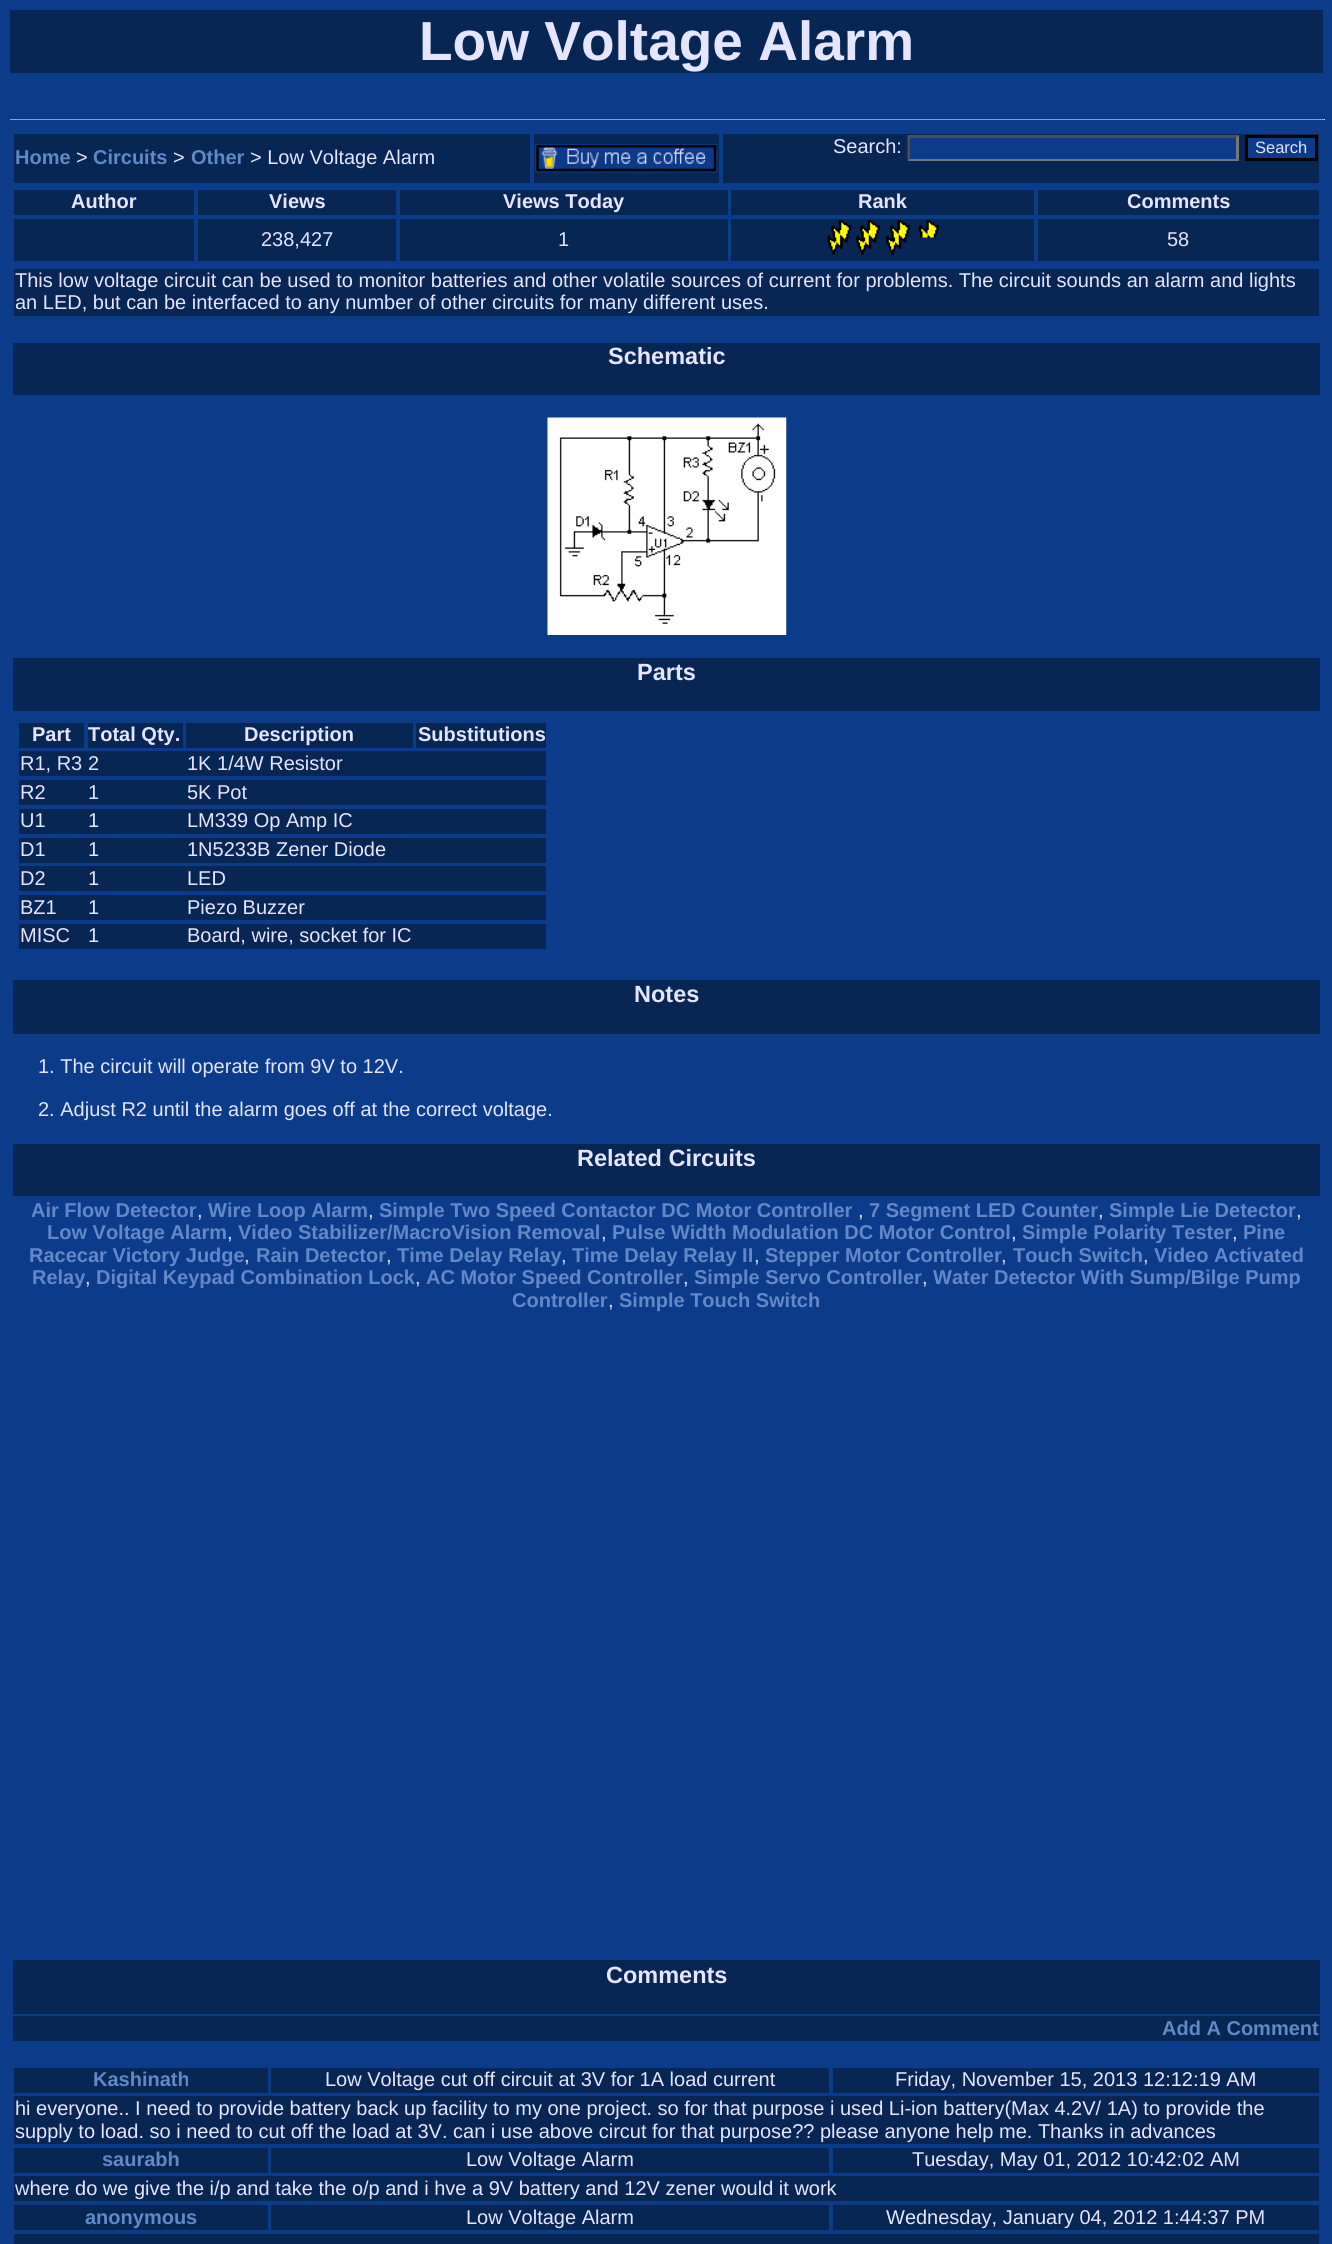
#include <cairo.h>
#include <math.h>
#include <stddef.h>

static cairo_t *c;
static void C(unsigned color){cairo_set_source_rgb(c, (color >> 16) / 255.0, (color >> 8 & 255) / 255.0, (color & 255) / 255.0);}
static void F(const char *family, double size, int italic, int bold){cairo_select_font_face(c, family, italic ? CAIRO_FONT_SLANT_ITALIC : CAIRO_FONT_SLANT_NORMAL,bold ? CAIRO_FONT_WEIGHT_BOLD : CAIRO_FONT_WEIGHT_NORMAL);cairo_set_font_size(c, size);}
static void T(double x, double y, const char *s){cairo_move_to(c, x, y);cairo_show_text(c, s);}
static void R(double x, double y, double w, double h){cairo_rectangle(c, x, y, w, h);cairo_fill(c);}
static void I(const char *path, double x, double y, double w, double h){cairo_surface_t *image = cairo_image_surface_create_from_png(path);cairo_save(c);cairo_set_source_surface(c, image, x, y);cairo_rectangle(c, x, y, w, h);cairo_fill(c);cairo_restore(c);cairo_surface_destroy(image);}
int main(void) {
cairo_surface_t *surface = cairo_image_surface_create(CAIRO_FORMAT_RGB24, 1332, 2244);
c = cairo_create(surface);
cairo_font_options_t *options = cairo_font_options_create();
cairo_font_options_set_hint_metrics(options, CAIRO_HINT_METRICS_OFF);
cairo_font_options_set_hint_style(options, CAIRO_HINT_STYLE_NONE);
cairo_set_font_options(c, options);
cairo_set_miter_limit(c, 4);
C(0x0c3b8a);
cairo_paint(c);
C(0x072653);
R(10,10,1313,63);
F("Liberation Sans",55,0,1);
C(0xe4e5ff);
T(419,60,"Low Voltage Alarm");
C(0x9f9f9f);
R(10,119,1315,1);
C(0xeeeeee);
R(1324,119,1,1);
C(0x072653);
R(534,134,185,49);
I("1.png",535,143,183,30);
R(723,134,596,49);
F("Liberation Sans",20,0,0);
C(0xe4e5ff);
T(833,153,"Search:");
C(0x0c3b8a);
R(908,135,331,26);
C(0x4f4f4f);
cairo_new_path(c);
cairo_move_to(c,908,135);
cairo_line_to(c,1239,135);
cairo_line_to(c,1236,138);
cairo_line_to(c,910,138);
cairo_close_path(c);
cairo_fill(c);
C(0x767676);
cairo_new_path(c);
cairo_move_to(c,1239,135);
cairo_line_to(c,1239,161);
cairo_line_to(c,1236,159);
cairo_line_to(c,1236,137.5);
cairo_close_path(c);
cairo_fill(c);
cairo_new_path(c);
cairo_move_to(c,1239,161);
cairo_line_to(c,908,161);
cairo_line_to(c,910,159);
cairo_line_to(c,1236,159);
cairo_close_path(c);
cairo_fill(c);
C(0x4f4f4f);
cairo_new_path(c);
cairo_move_to(c,907.5,161);
cairo_line_to(c,907.5,135);
cairo_line_to(c,910,137.5);
cairo_line_to(c,910,159);
cairo_close_path(c);
cairo_fill(c);
C(0x0c3b8a);
cairo_rectangle(c,1246.5,136.5,70,23);
cairo_fill_preserve(c);
C(0x000000);
cairo_set_line_width(c,3);
cairo_stroke(c);
F("Liberation Sans",16.5,0,0);
C(0xe4e5ff);
T(1255,153,"Search");
C(0x072653);
R(14,134,516,49);
F("Liberation Sans",20,0,1);
C(0x6388c8);
T(15,164,"Home");
F("Liberation Sans",20,0,0);
C(0xe4e5ff);
T(76,164,">");
F("Liberation Sans",20,0,1);
C(0x6388c8);
T(93,164,"Circuits");
F("Liberation Sans",20,0,0);
C(0xe4e5ff);
T(173,164,">");
F("Liberation Sans",20,0,1);
C(0x6388c8);
T(191,164,"Other");
F("Liberation Sans",20,0,0);
C(0xe4e5ff);
T(250,164,"> Low Voltage Alarm");
C(0x072653);
R(14,190,180,25);
F("Liberation Sans",20,0,1);
C(0xe4e5ff);
T(71,208,"Author");
C(0x072653);
R(198,190,198,25);
C(0xe4e5ff);
T(269,208,"Views");
C(0x072653);
R(400,190,328,25);
C(0xe4e5ff);
T(503,208,"Views Today");
C(0x072653);
R(731,190,303,25);
C(0xe4e5ff);
T(858,208,"Rank");
C(0x072653);
R(1038,190,281,25);
C(0xe4e5ff);
T(1127,208,"Comments");
C(0x072653);
R(14,219,180,42);
R(198,219,198,42);
F("Liberation Sans",20,0,0);
C(0xe4e5ff);
T(261,246,"238,427");
C(0x072653);
R(400,219,328,42);
C(0xe4e5ff);
T(558,246,"1");
C(0x072653);
R(731,219,303,42);
I("2.png",827,220,25,35);
I("3.png",856,220,24,35);
I("3.png",886,220,24,35);
I("4.png",918,220,21,18);
R(1038,219,281,42);
C(0xe4e5ff);
T(1167,246,"58");
C(0x072653);
R(14,269,1305,47);
C(0xe4e5ff);
T(15,287,"This low voltage circuit can be used to monitor batteries and other volatile sources of current for problems. The circuit sounds an alarm and lights");
T(15,309,"an LED, but can be interfaced to any number of other circuits for many different uses.");
C(0x072653);
R(13,343,1307,52);
F("Liberation Sans",23.5,0,1);
C(0xe4e5ff);
T(608,364,"Schematic");
I("5.png",547,417,240,218);
C(0x072653);
R(13,658,1307,53);
C(0xe4e5ff);
T(637,680,"Parts");
C(0x072653);
R(19,723,65,25);
F("Liberation Sans",20,0,1);
C(0xe4e5ff);
T(32,741,"Part");
C(0x072653);
R(88,723,95,25);
C(0xe4e5ff);
T(88,741,"Total Qty.");
C(0x072653);
R(186,723,227,25);
C(0xe4e5ff);
T(244,741,"Description");
C(0x072653);
R(416,723,130,25);
C(0xe4e5ff);
T(418,741,"Substitutions");
C(0x072653);
R(19,751,527,25);
F("Liberation Sans",20,0,0);
C(0xe4e5ff);
T(20,770,"R1, R3");
T(88,770,"2");
T(187,770,"1K 1/4W Resistor");
C(0x072653);
R(19,780,527,25);
C(0xe4e5ff);
T(20,799,"R2");
T(88,799,"1");
T(187,799,"5K Pot");
C(0x072653);
R(19,809,527,25);
C(0xe4e5ff);
T(20,827,"U1");
T(88,827,"1");
T(187,827,"LM339 Op Amp IC");
C(0x072653);
R(19,838,527,25);
C(0xe4e5ff);
T(20,856,"D1");
T(88,856,"1");
T(187,856,"1N5233B Zener Diode");
C(0x072653);
R(19,866,527,25);
C(0xe4e5ff);
T(20,885,"D2");
T(88,885,"1");
T(187,885,"LED");
C(0x072653);
R(19,895,527,25);
C(0xe4e5ff);
T(20,914,"BZ1");
T(88,914,"1");
T(187,914,"Piezo Buzzer");
C(0x072653);
R(19,924,527,25);
C(0xe4e5ff);
T(20,942,"MISC");
T(88,942,"1");
T(187,942,"Board, wire, socket for IC");
C(0x072653);
R(13,980,1307,54);
F("Liberation Sans",23.5,0,1);
C(0xe4e5ff);
T(634,1002,"Notes");
F("Liberation Sans",20,0,0);
T(38,1073,"1. The circuit will operate from 9V to 12V.");
T(38,1116,"2. Adjust R2 until the alarm goes off at the correct voltage.");
C(0x072653);
R(13,1144,1307,52);
F("Liberation Sans",23.5,0,1);
C(0xe4e5ff);
T(577,1166,"Related Circuits");
F("Liberation Sans",20,0,1);
C(0x6388c8);
T(31,1217,"Air Flow Detector");
F("Liberation Sans",20,0,0);
C(0xe4e5ff);
T(197,1217,",");
F("Liberation Sans",20,0,1);
C(0x6388c8);
T(208,1217,"Wire Loop Alarm");
F("Liberation Sans",20,0,0);
C(0xe4e5ff);
T(368,1217,",");
F("Liberation Sans",20,0,1);
C(0x6388c8);
T(379,1217,"Simple Two Speed Contactor DC Motor Controller");
F("Liberation Sans",20,0,0);
C(0xe4e5ff);
T(858,1217,",");
F("Liberation Sans",20,0,1);
C(0x6388c8);
T(869,1217,"7 Segment LED Counter");
F("Liberation Sans",20,0,0);
C(0xe4e5ff);
T(1098,1217,",");
F("Liberation Sans",20,0,1);
C(0x6388c8);
T(1109,1217,"Simple Lie Detector");
F("Liberation Sans",20,0,0);
C(0xe4e5ff);
T(1296,1217,",");
F("Liberation Sans",20,0,1);
C(0x6388c8);
T(47,1239,"Low Voltage Alarm");
F("Liberation Sans",20,0,0);
C(0xe4e5ff);
T(227,1239,",");
F("Liberation Sans",20,0,1);
C(0x6388c8);
T(238,1239,"Video Stabilizer/MacroVision Removal");
F("Liberation Sans",20,0,0);
C(0xe4e5ff);
T(601,1239,",");
F("Liberation Sans",20,0,1);
C(0x6388c8);
T(612,1239,"Pulse Width Modulation DC Motor Control");
F("Liberation Sans",20,0,0);
C(0xe4e5ff);
T(1011,1239,",");
F("Liberation Sans",20,0,1);
C(0x6388c8);
T(1022,1239,"Simple Polarity Tester");
F("Liberation Sans",20,0,0);
C(0xe4e5ff);
T(1232,1239,",");
F("Liberation Sans",20,0,1);
C(0x6388c8);
T(1243,1239,"Pine");
T(29,1262,"Racecar Victory Judge");
F("Liberation Sans",20,0,0);
C(0xe4e5ff);
T(244,1262,",");
F("Liberation Sans",20,0,1);
C(0x6388c8);
T(256,1262,"Rain Detector");
F("Liberation Sans",20,0,0);
C(0xe4e5ff);
T(386,1262,",");
F("Liberation Sans",20,0,1);
C(0x6388c8);
T(397,1262,"Time Delay Relay");
F("Liberation Sans",20,0,0);
C(0xe4e5ff);
T(561,1262,",");
F("Liberation Sans",20,0,1);
C(0x6388c8);
T(572,1262,"Time Delay Relay II");
F("Liberation Sans",20,0,0);
C(0xe4e5ff);
T(754,1262,",");
F("Liberation Sans",20,0,1);
C(0x6388c8);
T(765,1262,"Stepper Motor Controller");
F("Liberation Sans",20,0,0);
C(0xe4e5ff);
T(1001,1262,",");
F("Liberation Sans",20,0,1);
C(0x6388c8);
T(1013,1262,"Touch Switch");
F("Liberation Sans",20,0,0);
C(0xe4e5ff);
T(1143,1262,",");
F("Liberation Sans",20,0,1);
C(0x6388c8);
T(1154,1262,"Video Activated");
T(32,1284,"Relay");
F("Liberation Sans",20,0,0);
C(0xe4e5ff);
T(85,1284,",");
F("Liberation Sans",20,0,1);
C(0x6388c8);
T(96,1284,"Digital Keypad Combination Lock");
F("Liberation Sans",20,0,0);
C(0xe4e5ff);
T(415,1284,",");
F("Liberation Sans",20,0,1);
C(0x6388c8);
T(426,1284,"AC Motor Speed Controller");
F("Liberation Sans",20,0,0);
C(0xe4e5ff);
T(683,1284,",");
F("Liberation Sans",20,0,1);
C(0x6388c8);
T(694,1284,"Simple Servo Controller");
F("Liberation Sans",20,0,0);
C(0xe4e5ff);
T(922,1284,",");
F("Liberation Sans",20,0,1);
C(0x6388c8);
T(933,1284,"Water Detector With Sump/Bilge Pump");
T(512,1307,"Controller");
F("Liberation Sans",20,0,0);
C(0xe4e5ff);
T(608,1307,",");
F("Liberation Sans",20,0,1);
C(0x6388c8);
T(619,1307,"Simple Touch Switch");
C(0x072653);
R(13,1960,1307,54);
F("Liberation Sans",23.5,0,1);
C(0xe4e5ff);
T(606,1983,"Comments");
C(0x072653);
R(13,2016,1307,25);
F("Liberation Sans",20,0,1);
C(0x6388c8);
T(1162,2035,"Add A Comment");
C(0x072653);
R(14,2068,254,25);
C(0x6388c8);
T(93,2086,"Kashinath");
C(0x072653);
R(271,2068,558,25);
F("Liberation Sans",20,0,0);
C(0xe4e5ff);
T(325,2086,"Low Voltage cut off circuit at 3V for 1A load current");
C(0x072653);
R(833,2068,486,25);
C(0xe4e5ff);
T(895,2086,"Friday, November 15, 2013 12:12:19 AM");
C(0x072653);
R(14,2096,1305,48);
C(0xe4e5ff);
T(15,2115,"hi everyone.. I need to provide battery back up facility to my one project. so for that purpose i used Li-ion battery(Max 4.2V/ 1A) to provide the");
T(15,2138,"supply to load. so i need to cut off the load at 3V. can i use above circut for that purpose?\077 please anyone help me. Thanks in advances");
C(0x072653);
R(14,2148,254,25);
F("Liberation Sans",20,0,1);
C(0x6388c8);
T(102,2166,"saurabh");
C(0x072653);
R(271,2148,558,25);
F("Liberation Sans",20,0,0);
C(0xe4e5ff);
T(466,2166,"Low Voltage Alarm");
C(0x072653);
R(833,2148,486,25);
C(0xe4e5ff);
T(912,2166,"Tuesday, May 01, 2012 10:42:02 AM");
C(0x072653);
R(14,2176,1305,25);
C(0xe4e5ff);
T(15,2195,"where do we give the i/p and take the o/p and i hve a 9V battery and 12V zener would it work");
C(0x072653);
R(14,2205,254,25);
F("Liberation Sans",20,0,1);
C(0x6388c8);
T(85,2224,"anonymous");
C(0x072653);
R(271,2205,558,25);
F("Liberation Sans",20,0,0);
C(0xe4e5ff);
T(466,2224,"Low Voltage Alarm");
C(0x072653);
R(833,2205,486,25);
C(0xe4e5ff);
T(886,2224,"Wednesday, January 04, 2012 1:44:37 PM");
C(0x072653);
R(14,2234,1305,10);
cairo_surface_write_to_png(surface, "o.png");
cairo_font_options_destroy(options);
cairo_destroy(c);
cairo_surface_destroy(surface);
return 0;
}
